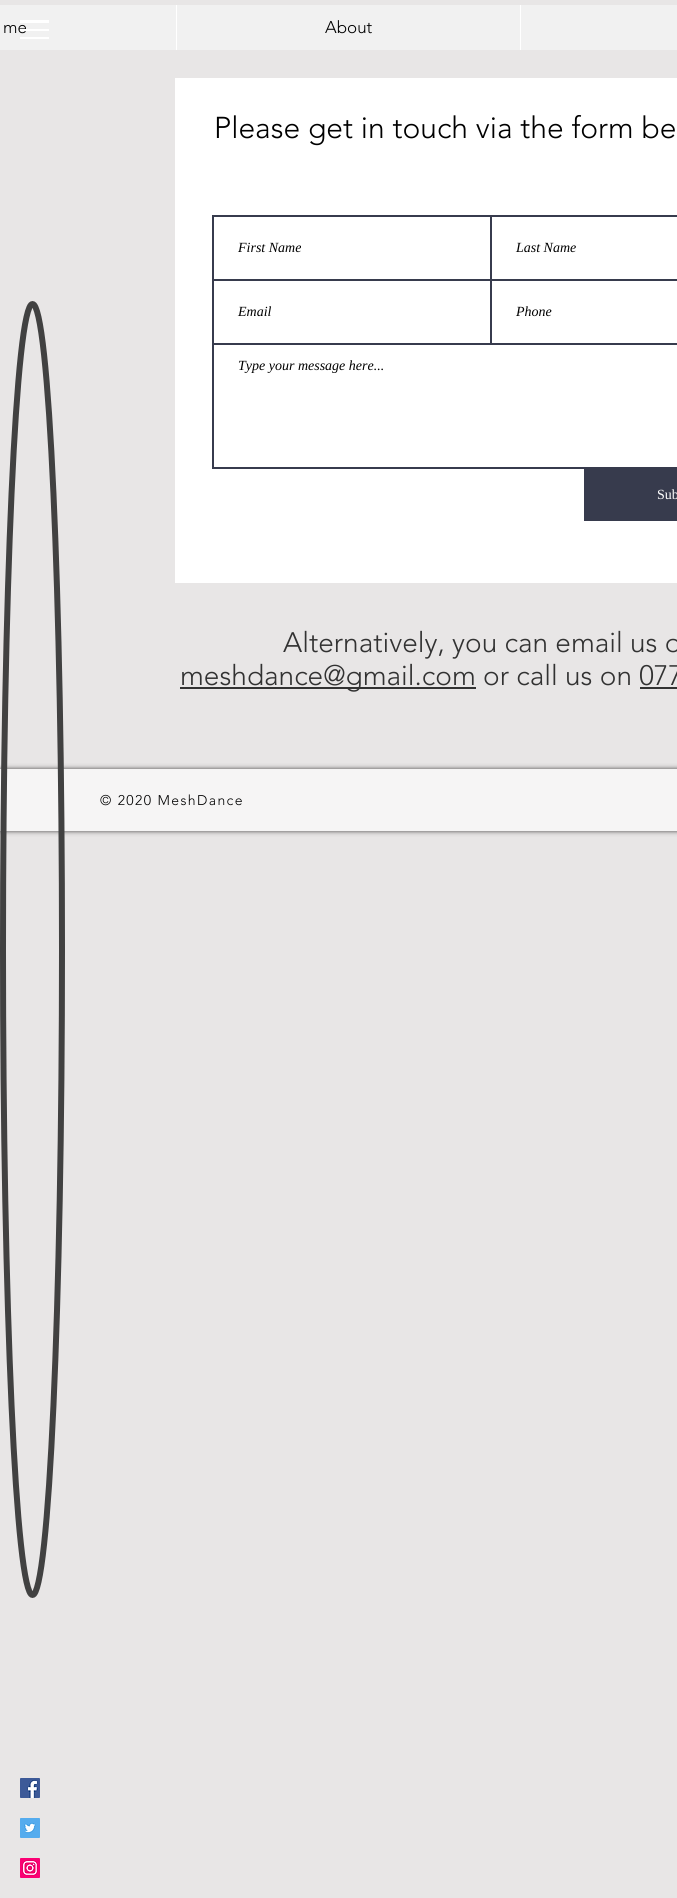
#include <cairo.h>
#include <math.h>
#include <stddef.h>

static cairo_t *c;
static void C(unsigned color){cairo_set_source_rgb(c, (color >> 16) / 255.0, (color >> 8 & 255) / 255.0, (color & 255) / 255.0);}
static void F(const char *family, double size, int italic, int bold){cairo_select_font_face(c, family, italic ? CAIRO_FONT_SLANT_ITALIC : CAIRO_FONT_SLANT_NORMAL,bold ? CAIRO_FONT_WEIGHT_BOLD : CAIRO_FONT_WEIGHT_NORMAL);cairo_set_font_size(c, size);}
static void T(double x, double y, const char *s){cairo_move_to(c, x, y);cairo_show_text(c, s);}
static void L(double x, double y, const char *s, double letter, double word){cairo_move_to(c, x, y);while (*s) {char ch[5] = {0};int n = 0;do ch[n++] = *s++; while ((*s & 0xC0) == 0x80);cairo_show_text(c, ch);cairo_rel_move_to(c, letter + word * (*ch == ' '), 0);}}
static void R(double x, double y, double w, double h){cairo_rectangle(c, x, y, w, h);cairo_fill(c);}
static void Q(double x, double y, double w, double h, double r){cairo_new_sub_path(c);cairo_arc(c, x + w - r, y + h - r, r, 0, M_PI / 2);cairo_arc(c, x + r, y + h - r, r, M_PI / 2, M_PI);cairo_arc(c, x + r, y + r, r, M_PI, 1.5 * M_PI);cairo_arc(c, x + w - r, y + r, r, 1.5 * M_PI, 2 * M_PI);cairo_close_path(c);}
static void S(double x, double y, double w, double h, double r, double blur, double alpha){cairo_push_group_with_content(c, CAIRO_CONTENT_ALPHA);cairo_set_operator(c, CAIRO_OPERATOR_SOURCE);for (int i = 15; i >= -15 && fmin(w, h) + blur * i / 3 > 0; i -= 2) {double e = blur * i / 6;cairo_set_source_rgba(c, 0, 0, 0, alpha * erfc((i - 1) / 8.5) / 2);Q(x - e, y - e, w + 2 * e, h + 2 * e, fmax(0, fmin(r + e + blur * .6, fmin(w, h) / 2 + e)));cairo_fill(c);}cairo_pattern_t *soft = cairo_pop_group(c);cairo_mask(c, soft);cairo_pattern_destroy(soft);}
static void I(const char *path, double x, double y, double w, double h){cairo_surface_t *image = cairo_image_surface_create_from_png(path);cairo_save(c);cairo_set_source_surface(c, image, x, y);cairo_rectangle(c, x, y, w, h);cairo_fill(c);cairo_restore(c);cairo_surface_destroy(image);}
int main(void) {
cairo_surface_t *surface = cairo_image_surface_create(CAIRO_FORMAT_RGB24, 677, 1898);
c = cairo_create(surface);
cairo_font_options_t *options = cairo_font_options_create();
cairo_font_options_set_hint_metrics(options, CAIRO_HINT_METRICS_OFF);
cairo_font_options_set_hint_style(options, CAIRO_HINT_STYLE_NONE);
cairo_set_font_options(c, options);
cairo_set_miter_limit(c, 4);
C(0xe8e6e6);
cairo_paint(c);
C(0xf1f1f1);
R(0,5,677,45);
F("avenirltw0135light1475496 Light",17,0,0);
C(0x000000);
T(3,33,"me");
C(0xffffff);
R(176,5,1,45);
C(0x000000);
T(325,33,"About");
C(0xffffff);
R(520,5,1,45);
R(20,37,29,2);
R(20,20,29,3);
R(20,29,29,2);
C(0x000000);
S(0,769,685,62,0,2.5,.7);
C(0xf6f5f5);
R(0,769,677,62);
cairo_new_path(c);
cairo_move_to(c,32.5,304);
cairo_curve_to(c,49,304,62,593,62,949.5);
cairo_curve_to(c,62,1306,49,1595,32.5,1595);
cairo_curve_to(c,16,1595,3,1306,3,949.5);
cairo_curve_to(c,3,593,16,304,32.5,304);
cairo_close_path(c);
C(0x414141);
cairo_set_line_width(c,6);
cairo_stroke(c);
F("avenirltw0135light1475496 Light",14,0,0);
C(0x000000);
L(100,805,"© 2020 MeshDance",1.4,0);
C(0xffffff);
R(175,78,502,505);
F("avenirltw0135light1475496 Light",30,0,0);
C(0x000000);
T(214,138,"Please get in touch via the form be");
cairo_rectangle(c,213,216,278,64);
C(0x373b4d);
cairo_set_line_width(c,2);
cairo_stroke(c);
F("Liberation Serif",14,1,0);
C(0x000000);
T(238,252,"First Name");
cairo_rectangle(c,491,216,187,64);
C(0x373b4d);
cairo_stroke(c);
C(0x000000);
T(516,252,"Last Name");
cairo_rectangle(c,213,280,278,64);
C(0x373b4d);
cairo_stroke(c);
C(0x000000);
T(238,316,"Email");
cairo_rectangle(c,491,280,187,64);
C(0x373b4d);
cairo_stroke(c);
C(0x000000);
T(516,316,"Phone");
cairo_rectangle(c,213,344,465,124);
C(0x373b4d);
cairo_stroke(c);
C(0x000000);
T(238,370,"Type your message here...");
C(0x373b4d);
R(584,469,93,52);
F("Liberation Serif",14,0,0);
C(0xffffff);
T(657,499,"Sub");
F("avenirltw0135light1475496 Light",28,0,0);
C(0x323232);
T(283,652,"Alternatively, you can email us o");
R(180,687,296,2);
T(180,685,"meshdance@gmail.com or call us on 077");
R(640,687,37,2);
I("1.png",20,1778,20,20);
I("2.png",20,1818,20,20);
I("3.png",20,1858,20,20);
cairo_surface_write_to_png(surface, "o.png");
cairo_font_options_destroy(options);
cairo_destroy(c);
cairo_surface_destroy(surface);
return 0;
}
